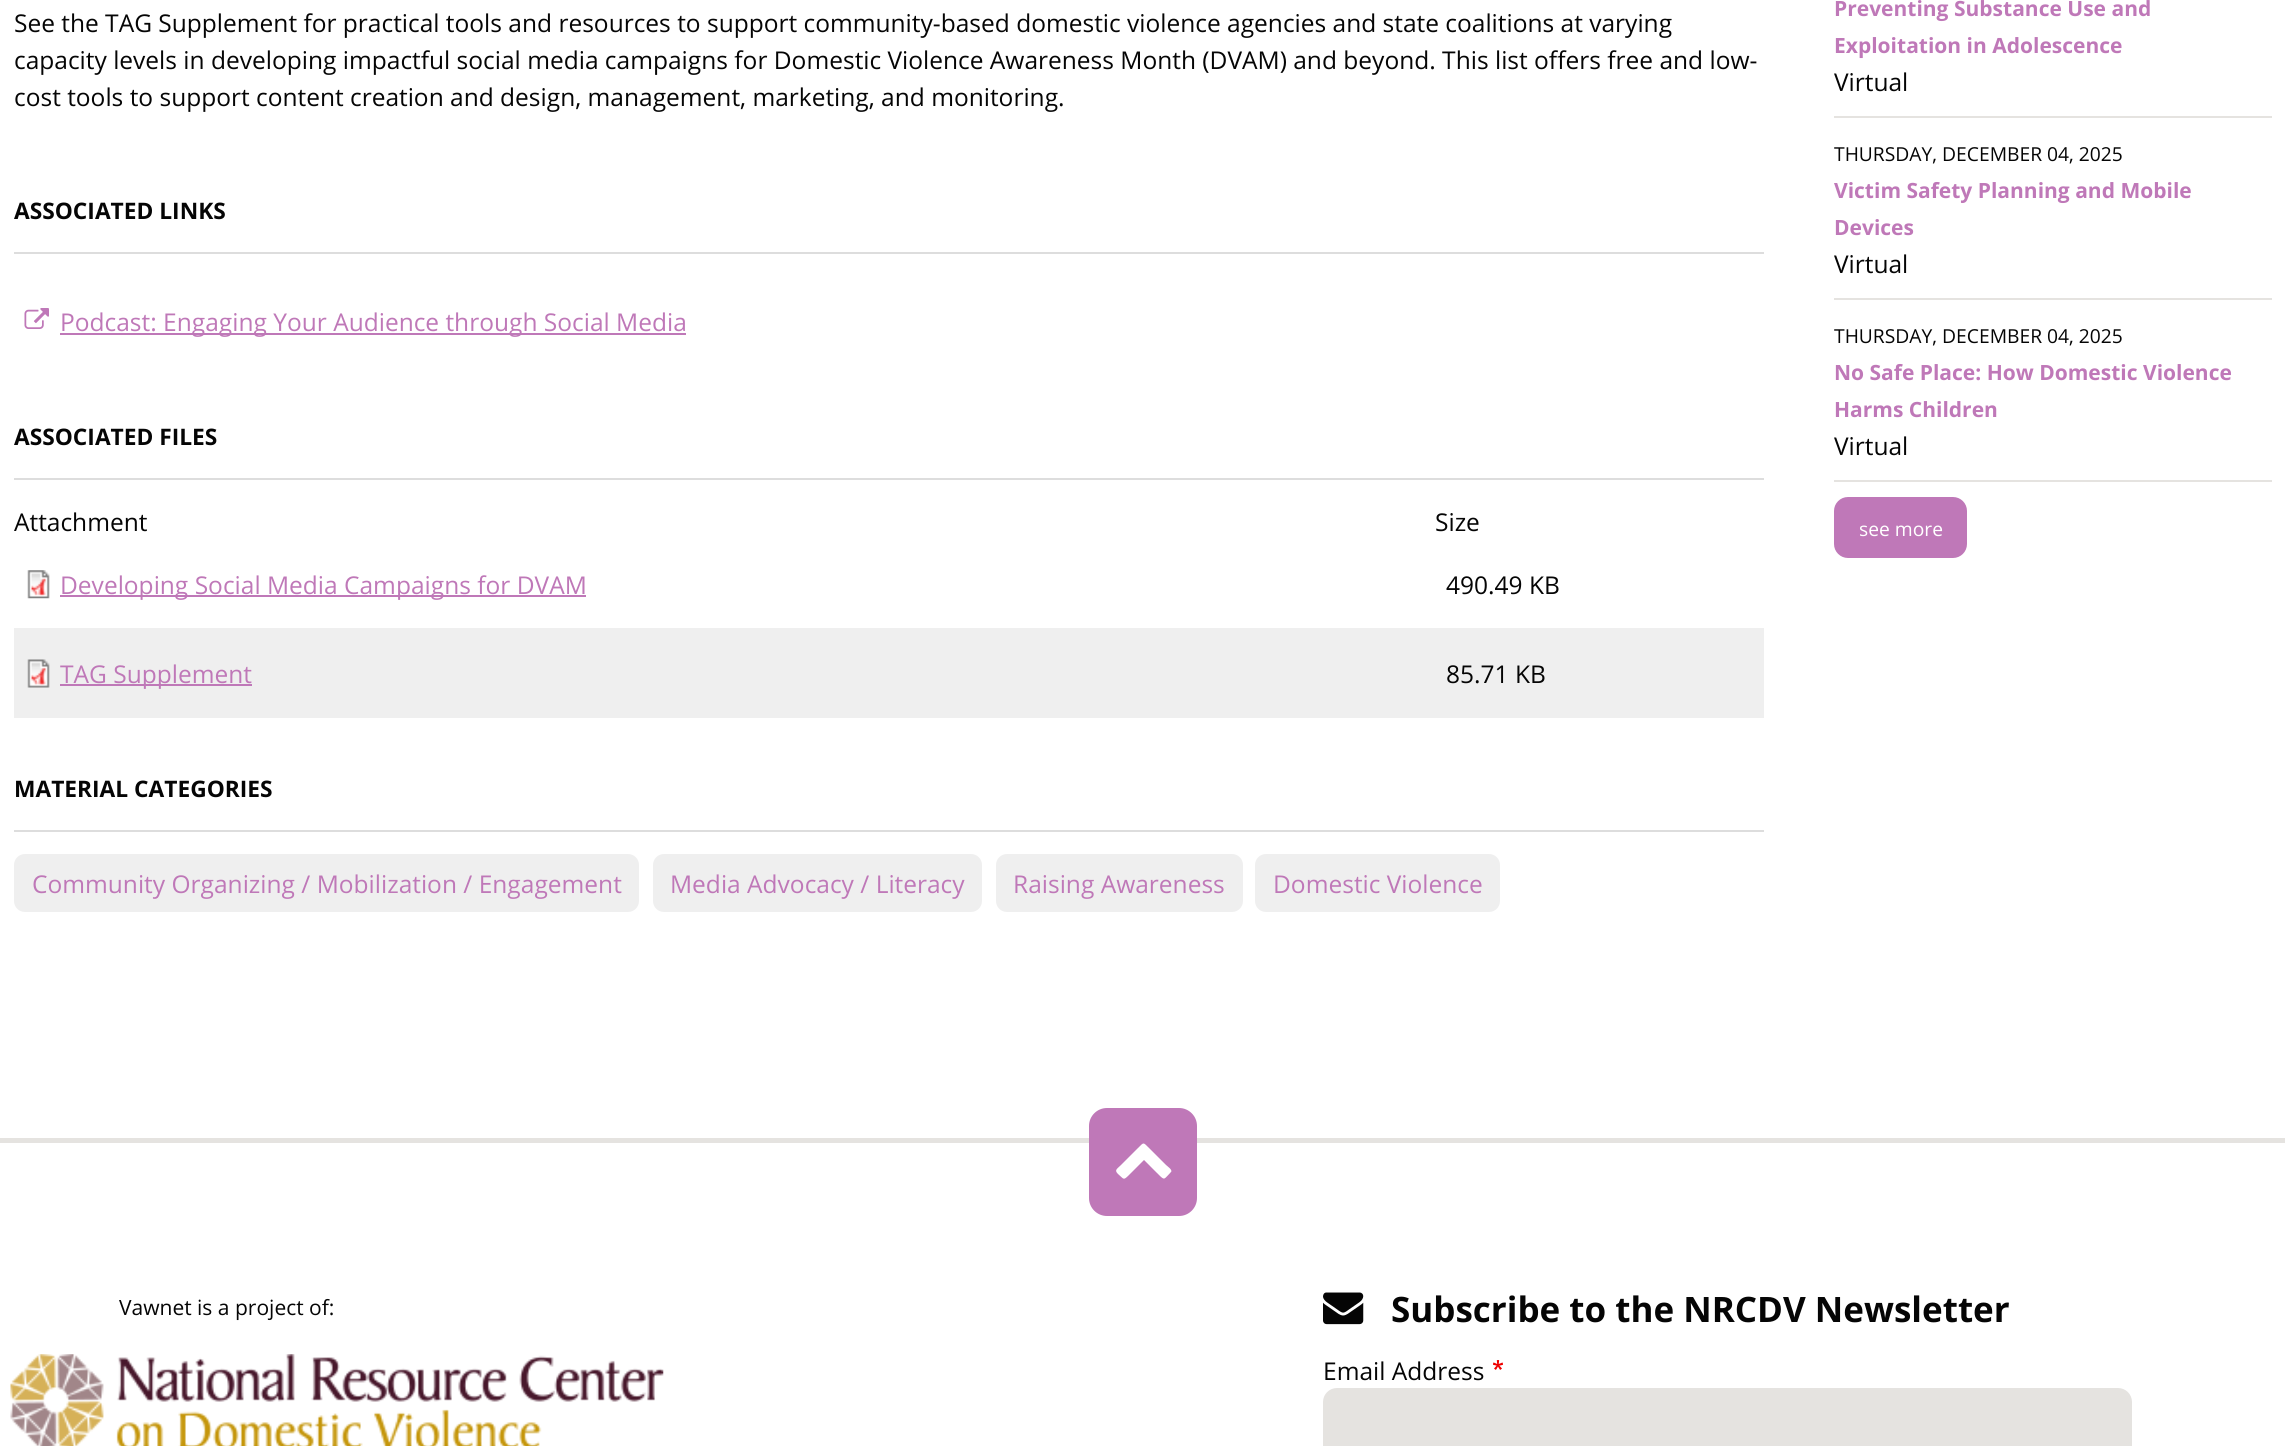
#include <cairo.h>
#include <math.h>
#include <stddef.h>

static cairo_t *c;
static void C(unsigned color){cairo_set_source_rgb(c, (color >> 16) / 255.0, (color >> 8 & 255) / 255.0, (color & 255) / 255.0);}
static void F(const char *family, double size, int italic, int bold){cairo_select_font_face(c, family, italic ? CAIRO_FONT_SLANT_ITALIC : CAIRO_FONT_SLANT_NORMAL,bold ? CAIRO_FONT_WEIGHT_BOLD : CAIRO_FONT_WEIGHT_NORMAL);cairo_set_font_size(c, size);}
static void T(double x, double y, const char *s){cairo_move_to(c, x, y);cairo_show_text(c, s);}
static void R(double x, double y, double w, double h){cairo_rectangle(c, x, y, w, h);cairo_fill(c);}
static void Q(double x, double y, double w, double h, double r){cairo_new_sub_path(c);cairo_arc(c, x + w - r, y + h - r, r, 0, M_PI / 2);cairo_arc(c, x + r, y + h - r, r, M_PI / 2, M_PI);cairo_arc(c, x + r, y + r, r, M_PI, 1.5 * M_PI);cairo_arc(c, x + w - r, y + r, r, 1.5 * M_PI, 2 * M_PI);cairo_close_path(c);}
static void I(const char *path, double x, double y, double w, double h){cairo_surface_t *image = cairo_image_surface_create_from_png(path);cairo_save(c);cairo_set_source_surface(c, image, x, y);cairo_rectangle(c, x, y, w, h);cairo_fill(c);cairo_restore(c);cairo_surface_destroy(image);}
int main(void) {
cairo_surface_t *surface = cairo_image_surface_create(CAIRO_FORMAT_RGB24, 2285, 1446);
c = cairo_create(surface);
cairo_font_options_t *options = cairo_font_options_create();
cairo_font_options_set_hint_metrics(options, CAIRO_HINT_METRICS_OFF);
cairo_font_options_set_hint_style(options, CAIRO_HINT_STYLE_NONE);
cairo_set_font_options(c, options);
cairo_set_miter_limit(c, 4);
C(0xffffff);
cairo_paint(c);
F("Open Sans",24.5,0,0);
C(0x050505);
T(14,32,"See the TAG Supplement for practical tools and resources to support community-based domestic violence agencies and state coalitions at varying");
T(14,69,"capacity levels in developing impactful social media campaigns for Domestic Violence Awareness Month (DVAM) and beyond. This list offers free and low-");
T(14,106,"cost tools to support content creation and design, management, marketing, and monitoring.");
C(0xdddddd);
R(14,252,1750,2);
F("Open Sans",22.75,0,1);
C(0x050505);
T(14,219,"ASSOCIATED LINKS");
I("1.png",24,308,25,21);
C(0xbf78b8);
R(60,333,626,2);
F("Open Sans",24.5,0,0);
T(60,331,"Podcast: Engaging Your Audience through Social Media");
C(0xdddddd);
R(14,478,1750,2);
F("Open Sans",22.75,0,1);
C(0x050505);
T(14,445,"ASSOCIATED FILES");
F("Open Sans",24.5,0,0);
T(14,531,"Attachment");
T(1435,531,"Size");
I("2.png",27,570,23,29);
C(0xbf78b8);
R(60,595,526,2);
T(60,594,"Developing Social Media Campaigns for DVAM");
C(0x050505);
T(1446,594,"490.49 KB");
C(0xefefef);
R(14,628,1750,90);
I("3.png",27,659,23,29);
C(0xbf78b8);
R(60,684,192,2);
T(60,683,"TAG Supplement");
C(0x050505);
T(1446,683,"85.71 KB");
C(0xdddddd);
R(14,830,1750,2);
F("Open Sans",22.75,0,1);
C(0x050505);
T(14,797,"MATERIAL CATEGORIES");
C(0xefefef);
Q(14,854,625,58,11);
cairo_fill(c);
F("Open Sans",24.5,0,0);
C(0xbf78b8);
T(32,893,"Community Organizing / Mobilization / Engagement");
C(0xefefef);
Q(653,854,329,58,11);
cairo_fill(c);
C(0xbf78b8);
T(670,893,"Media Advocacy / Literacy");
C(0xefefef);
Q(996,854,247,58,11);
cairo_fill(c);
C(0xbf78b8);
T(1013,893,"Raising Awareness");
C(0xefefef);
Q(1255,854,245,58,11);
cairo_fill(c);
C(0xbf78b8);
T(1273,893,"Domestic Violence");
C(0xe5e3e0);
R(1834,116,438,2);
F("Open Sans",21,0,1);
C(0xbf78b8);
T(1834,16,"Preventing Substance Use and");
T(1834,53,"Exploitation in Adolescence");
F("Open Sans",24.5,0,0);
C(0x050505);
T(1834,91,"Virtual");
C(0xe5e3e0);
R(1834,298,438,2);
F("Open Sans",19.25,0,0);
C(0x050505);
T(1834,161,"THURSDAY, DECEMBER 04, 2025");
F("Open Sans",21,0,1);
C(0xbf78b8);
T(1834,198,"Victim Safety Planning and Mobile");
T(1834,235,"Devices");
F("Open Sans",24.5,0,0);
C(0x050505);
T(1834,273,"Virtual");
C(0xe5e3e0);
R(1834,480,438,2);
F("Open Sans",19.25,0,0);
C(0x050505);
T(1834,343,"THURSDAY, DECEMBER 04, 2025");
F("Open Sans",21,0,1);
C(0xbf78b8);
T(1834,380,"No Safe Place: How Domestic Violence");
T(1834,417,"Harms Children");
F("Open Sans",24.5,0,0);
C(0x050505);
T(1834,455,"Virtual");
C(0xbf78b8);
Q(1834,497,133,61,14);
cairo_fill(c);
F("Open Sans",19.25,0,0);
C(0xffffff);
T(1859,536,"see more");
C(0xe5e3e0);
R(0,1138,2285,5);
C(0xbf78b8);
Q(1089,1108,108,108,18);
cairo_fill(c);
C(0xffffff);
cairo_new_path(c);
cairo_move_to(c,1171,1172);
cairo_curve_to(c,1164,1179,1165,1181,1159,1175);
cairo_line_to(c,1144,1160);
cairo_line_to(c,1129,1175);
cairo_curve_to(c,1123,1181,1124,1179,1118,1174);
cairo_curve_to(c,1114,1170,1117,1169,1121,1165);
cairo_line_to(c,1138,1148);
cairo_curve_to(c,1144,1142,1143,1142,1149,1148);
cairo_line_to(c,1166,1165);
cairo_curve_to(c,1167,1166,1173,1170,1171,1172);
cairo_close_path(c);
cairo_fill(c);
F("Open Sans",21,0,0);
C(0x050505);
T(119,1315,"Vawnet is a project of:");
I("4.png",10,1354,654,92);
I("5.png",1323,1292,41,33);
F("Open Sans",35,0,1);
T(1391,1322,"Subscribe to the NRCDV Newsletter");
F("Open Sans",24.5,0,0);
T(1323,1380,"Email Address");
I("6.png",1493,1360,10,10);
C(0xe5e3e0);
Q(1323,1388,809,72,14);
cairo_fill(c);
cairo_surface_write_to_png(surface, "o.png");
cairo_font_options_destroy(options);
cairo_destroy(c);
cairo_surface_destroy(surface);
return 0;
}
